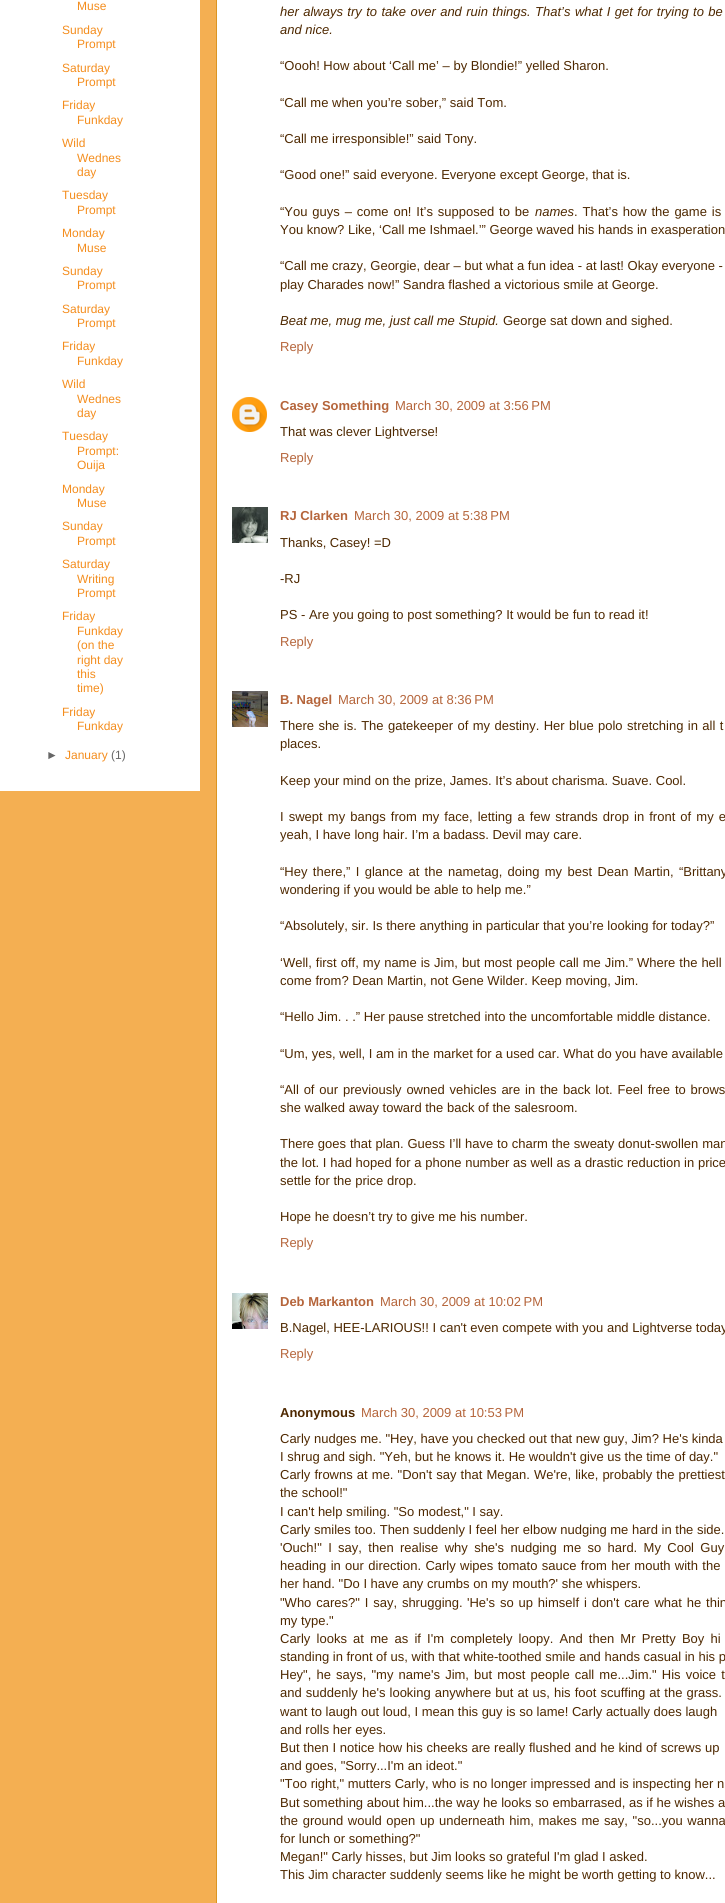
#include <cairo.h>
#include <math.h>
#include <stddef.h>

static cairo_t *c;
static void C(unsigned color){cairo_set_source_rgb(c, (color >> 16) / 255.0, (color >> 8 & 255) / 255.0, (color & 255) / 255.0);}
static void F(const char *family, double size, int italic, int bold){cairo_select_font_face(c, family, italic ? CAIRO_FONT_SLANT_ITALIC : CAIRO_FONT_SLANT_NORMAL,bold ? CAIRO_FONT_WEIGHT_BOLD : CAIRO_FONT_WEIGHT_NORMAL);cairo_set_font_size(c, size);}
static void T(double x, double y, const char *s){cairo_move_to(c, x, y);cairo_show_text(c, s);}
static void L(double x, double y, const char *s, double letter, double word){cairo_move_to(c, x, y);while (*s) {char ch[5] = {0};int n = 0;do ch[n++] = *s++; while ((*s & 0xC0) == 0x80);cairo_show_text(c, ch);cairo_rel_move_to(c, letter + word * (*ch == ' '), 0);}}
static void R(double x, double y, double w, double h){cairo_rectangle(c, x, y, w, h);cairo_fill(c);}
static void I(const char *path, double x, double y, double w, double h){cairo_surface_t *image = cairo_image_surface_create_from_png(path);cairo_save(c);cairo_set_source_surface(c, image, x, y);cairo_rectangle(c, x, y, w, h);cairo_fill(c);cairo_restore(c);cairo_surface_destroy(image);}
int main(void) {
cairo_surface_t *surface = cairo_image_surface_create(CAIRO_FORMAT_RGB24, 725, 1903);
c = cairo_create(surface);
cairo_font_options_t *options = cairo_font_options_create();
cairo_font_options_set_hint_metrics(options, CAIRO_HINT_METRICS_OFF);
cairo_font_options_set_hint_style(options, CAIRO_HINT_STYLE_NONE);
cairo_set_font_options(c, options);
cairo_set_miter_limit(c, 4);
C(0xf4af52);
cairo_paint(c);
C(0xffffff);
R(0,0,200,791);
F("Liberation Sans",12,0,0);
C(0xf48d1d);
T(77,10,"Muse");
T(62,34,"Sunday");
T(77,48,"Prompt");
T(62,72,"Saturday");
T(77,86,"Prompt");
T(62,109,"Friday");
T(77,124,"Funkday");
T(62,147,"Wild");
T(77,162,"Wednes");
T(77,176,"day");
T(62,199,"Tuesday");
T(77,214,"Prompt");
T(62,237,"Monday");
T(77,252,"Muse");
T(62,275,"Sunday");
T(77,289,"Prompt");
T(62,313,"Saturday");
T(77,327,"Prompt");
T(62,350,"Friday");
T(77,365,"Funkday");
T(62,388,"Wild");
T(77,403,"Wednes");
T(77,417,"day");
T(62,440,"Tuesday");
T(77,455,"Prompt:");
T(77,469,"Ouija");
T(62,493,"Monday");
T(77,507,"Muse");
T(62,530,"Sunday");
T(77,545,"Prompt");
T(62,568,"Saturday");
T(77,583,"Writing");
T(77,597,"Prompt");
T(62,620,"Friday");
T(77,635,"Funkday");
T(77,649,"(on the");
T(77,664,"right day");
T(77,678,"this");
T(77,692,"time)");
T(62,716,"Friday");
T(77,730,"Funkday");
C(0x666666);
T(46,759,"►");
C(0xf48d1d);
T(65,759,"January");
C(0x666666);
T(111,759,"(1)");
C(0xffffff);
cairo_rectangle(c,216.5,-.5,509,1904);
cairo_fill_preserve(c);
C(0xdc9522);
cairo_set_line_width(c,1);
cairo_stroke(c);
F("Liberation Sans",13,1,0);
C(0x4e2800);
L(280,16,"her always try to take over and ruin things. That’s what I get for trying to be",0,.8);
T(280,34,"and nice.");
F("Liberation Sans",13,0,0);
T(280,70,"“Oooh! How about ‘Call me’ – by Blondie!” yelled Sharon.");
T(280,107,"“Call me when you’re sober,” said Tom.");
T(280,143,"“Call me irresponsible!” said Tony.");
T(280,179,"“Good one!” said everyone. Everyone except George, that is.");
L(280,216,"“You guys – come on! It’s supposed to be",0,1.25);
F("Liberation Sans",13,1,0);
T(535,216,"names");
F("Liberation Sans",13,0,0);
L(574,216,". That’s how the game is",0,1.25);
T(280,234,"You know? Like, ‘Call me Ishmael.’” George waved his hands in exasperation");
T(280,270,"“Call me crazy, Georgie, dear – but what a fun idea - at last! Okay everyone -");
T(280,289,"play Charades now!” Sandra flashed a victorious smile at George.");
F("Liberation Sans",13,1,0);
T(280,325,"Beat me, mug me, just call me Stupid.");
F("Liberation Sans",13,0,0);
T(503,325,"George sat down and sighed.");
C(0xb5653b);
T(280,351,"Reply");
I("1.png",232,397,35,35);
F("Liberation Sans",13,0,1);
T(280,410,"Casey Something");
F("Liberation Sans",13,0,0);
T(395,410,"March 30, 2009 at 3:56 PM");
C(0x4e2800);
T(280,436,"That was clever Lightverse!");
C(0xb5653b);
T(280,462,"Reply");
I("2.png",232,507,36,36);
F("Liberation Sans",13,0,1);
T(280,520,"RJ Clarken");
F("Liberation Sans",13,0,0);
T(354,520,"March 30, 2009 at 5:38 PM");
C(0x4e2800);
T(280,547,"Thanks, Casey! =D");
T(280,583,"-RJ");
T(280,619,"PS - Are you going to post something? It would be fun to read it!");
C(0xb5653b);
T(280,646,"Reply");
I("3.png",232,691,36,36);
F("Liberation Sans",13,0,1);
T(280,704,"B. Nagel");
F("Liberation Sans",13,0,0);
T(338,704,"March 30, 2009 at 8:36 PM");
C(0x4e2800);
L(280,730,"There she is. The gatekeeper of my destiny. Her blue polo stretching in all t",0,.8);
T(280,748,"places.");
T(280,785,"Keep your mind on the prize, James. It’s about charisma. Suave. Cool.");
L(280,821,"I swept my bangs from my face, letting a few strands drop in front of my e",0,1.5);
T(280,839,"yeah, I have long hair. I’m a badass. Devil may care.");
L(280,876,"“Hey there,” I glance at the nametag, doing my best Dean Martin, “Brittany",0,1.75);
T(280,894,"wondering if you would be able to help me.”");
T(280,930,"“Absolutely, sir. Is there anything in particular that you’re looking for today?”");
L(280,967,"‘Well, first off, my name is Jim, but most people call me Jim.” Where the hell",0,.4);
T(280,985,"come from? Dean Martin, not Gene Wilder. Keep moving, Jim.");
T(280,1021,"“Hello Jim. . .” Her pause stretched into the uncomfortable middle distance.");
T(280,1058,"“Um, yes, well, I am in the market for a used car. What do you have available");
L(280,1094,"“All of our previously owned vehicles are in the back lot. Feel free to brows",0,1.25);
T(280,1112,"she walked away toward the back of the salesroom.");
L(280,1148,"There goes that plan. Guess I’ll have to charm the sweaty donut-swollen man",0,.25);
L(280,1167,"the lot. I had hoped for a phone number as well as a drastic reduction in price",0,.1);
T(280,1185,"settle for the price drop.");
T(280,1221,"Hope he doesn’t try to give me his number.");
C(0xb5653b);
T(280,1247,"Reply");
I("4.png",232,1293,36,36);
F("Liberation Sans",13,0,1);
T(280,1306,"Deb Markanton");
F("Liberation Sans",13,0,0);
T(380,1306,"March 30, 2009 at 10:02 PM");
C(0x4e2800);
T(280,1332,"B.Nagel, HEE-LARIOUS!! I can't even compete with you and Lightverse today");
C(0xb5653b);
T(280,1358,"Reply");
F("Liberation Sans",13,0,1);
C(0x4e2800);
T(280,1417,"Anonymous");
F("Liberation Sans",13,0,0);
C(0xb5653b);
T(361,1417,"March 30, 2009 at 10:53 PM");
C(0x4e2800);
T(280,1443,"Carly nudges me. \"Hey, have you checked out that new guy, Jim? He's kinda");
T(280,1461,"I shrug and sigh. \"Yeh, but he knows it. He wouldn't give us the time of day.\"");
L(280,1479,"Carly frowns at me. \"Don't say that Megan. We're, like, probably the prettiest",0,.5);
T(280,1497,"the school!\"");
T(280,1516,"I can't help smiling. \"So modest,\" I say.");
T(280,1534,"Carly smiles too. Then suddenly I feel her elbow nudging me hard in the side.");
L(280,1552,"'Ouch!\" I say, then realise why she's nudging me so hard. My Cool Guy",0,2.75);
L(280,1570,"heading in our direction. Carly wipes tomato sauce from her mouth with the",0,.75);
T(280,1588,"her hand. \"Do I have any crumbs on my mouth?' she whispers.");
L(280,1607,"\"Who cares?\" I say, shrugging.",0,1.25);
L(467,1607,"'He's so up himself i don't care what he thin",0,1.25);
T(280,1625,"my type.\"");
L(280,1643,"Carly looks at me as if I'm completely loopy. And then Mr Pretty Boy hi",0,2.6);
T(280,1661,"standing in front of us, with that white-toothed smile and hands casual in his p");
L(280,1679,"Hey\", he says, \"my name's Jim, but most people call me...Jim.\" His voice t",0,1.5);
L(280,1697,"and suddenly he's looking anywhere but at us, his foot scuffing at the grass.",0,.5);
T(280,1716,"want to laugh out loud, I mean this guy is so lame! Carly actually does laugh");
T(280,1734,"and rolls her eyes.");
L(280,1752,"But then I notice how his cheeks are really flushed and he kind of screws up",0,.2);
T(280,1770,"and goes, \"Sorry...I'm an ideot.\"");
T(280,1788,"\"Too right,\" mutters Carly, who is no longer impressed and is inspecting her n");
T(280,1807,"But something about him...the way he looks so embarrased, as if he wishes a");
L(280,1825,"the ground would open up underneath him, makes me say, \"so...you wanna",0,1);
T(280,1843,"for lunch or something?\"");
T(280,1861,"Megan!\" Carly hisses, but Jim looks so grateful I'm glad I asked.");
T(280,1879,"This Jim character suddenly seems like he might be worth getting to know...");
cairo_surface_write_to_png(surface, "o.png");
cairo_font_options_destroy(options);
cairo_destroy(c);
cairo_surface_destroy(surface);
return 0;
}
